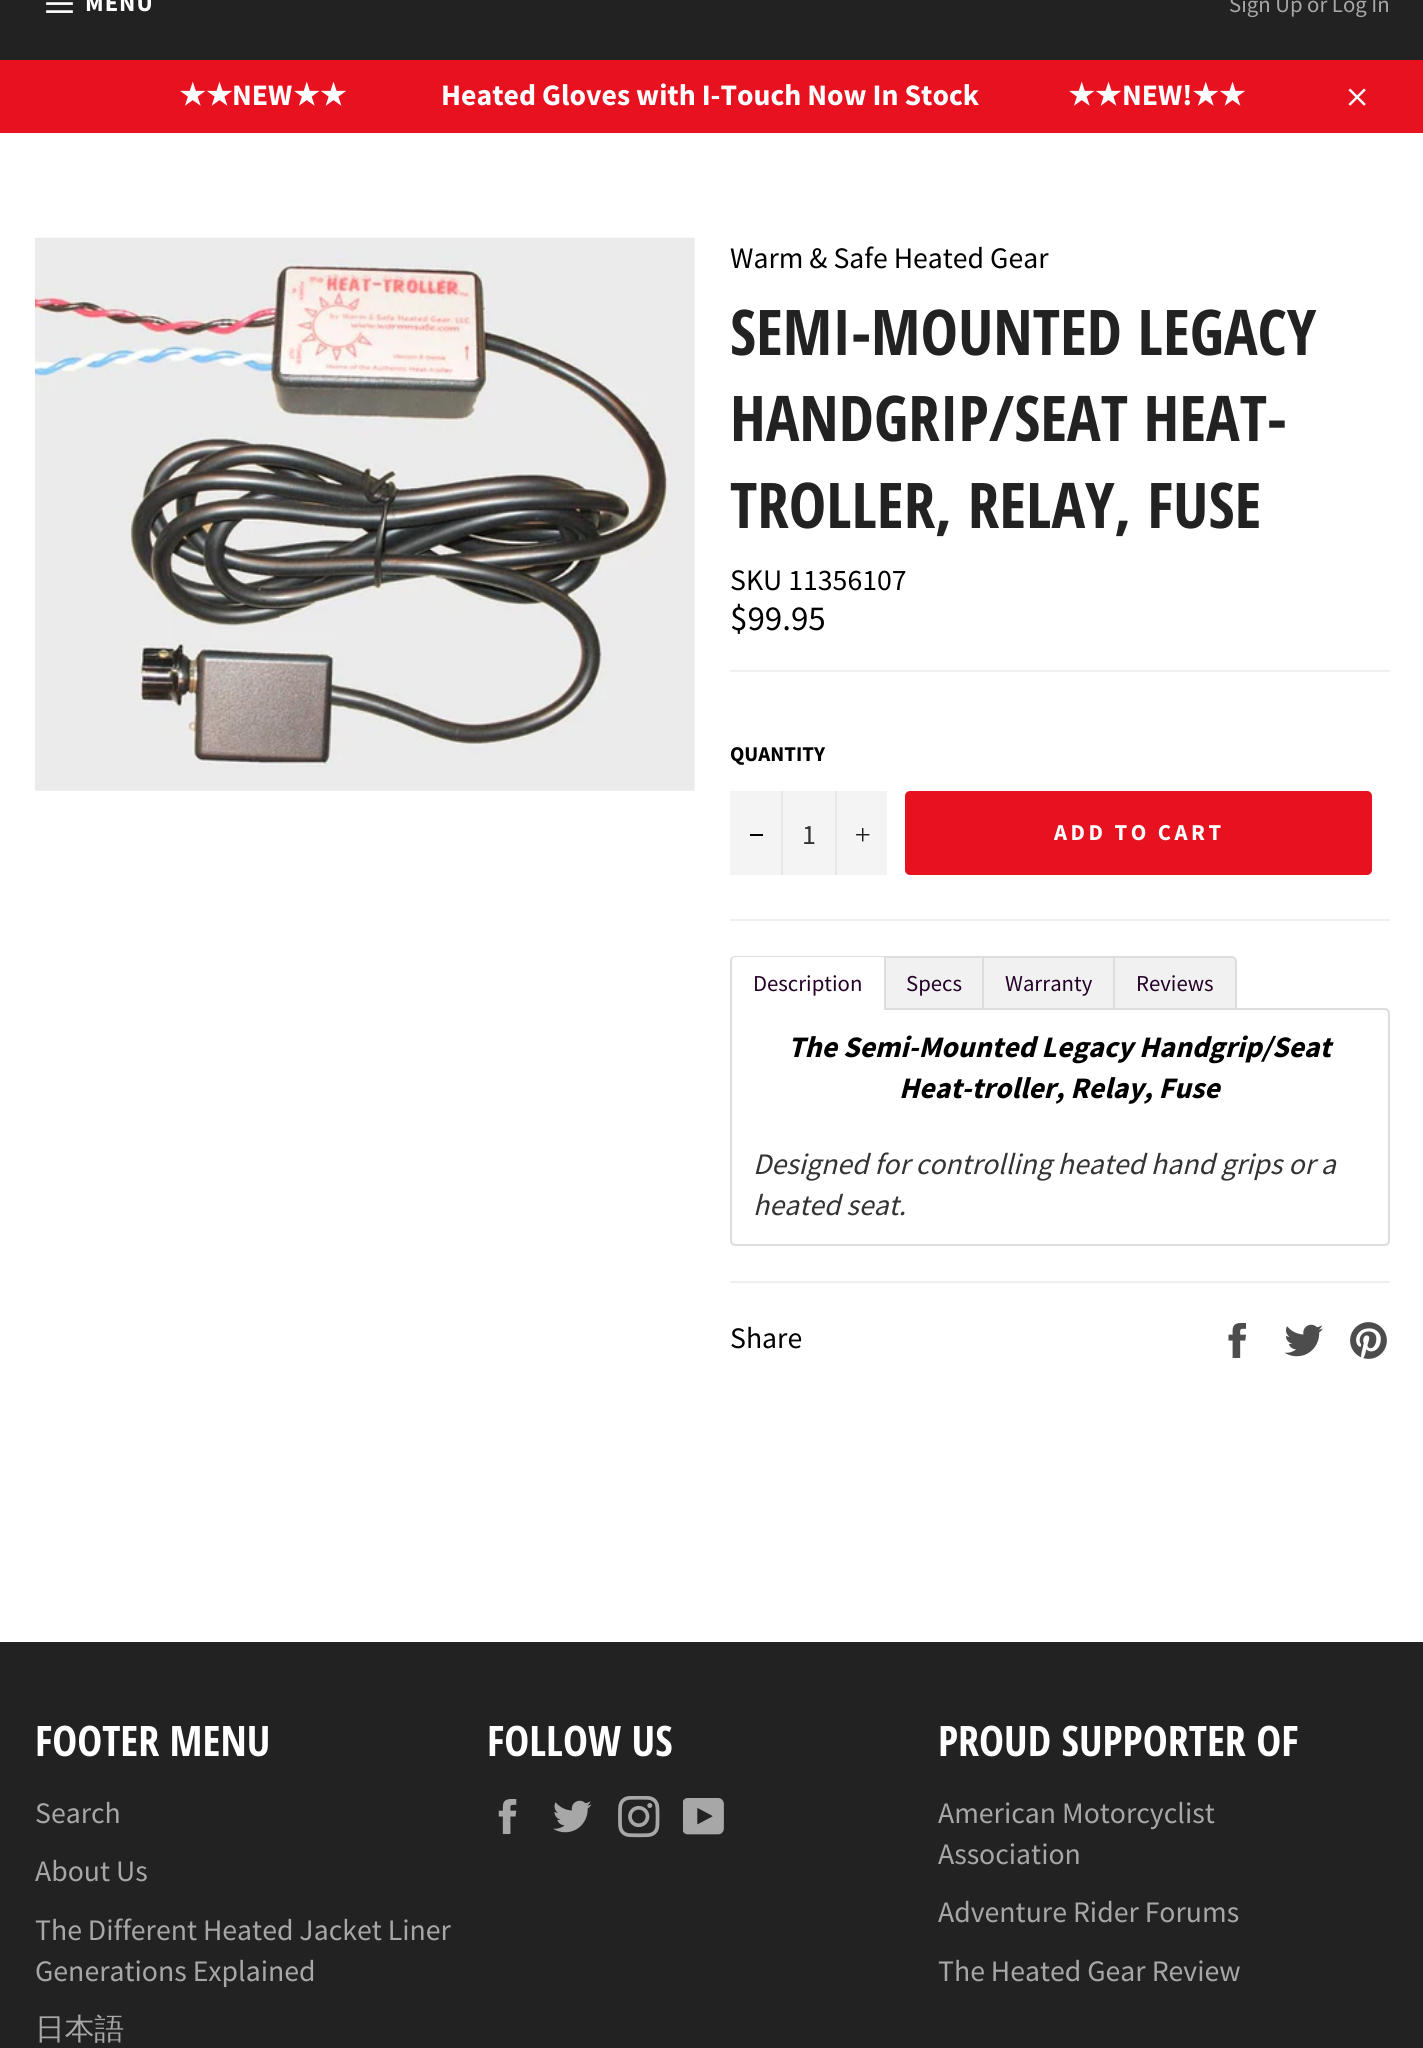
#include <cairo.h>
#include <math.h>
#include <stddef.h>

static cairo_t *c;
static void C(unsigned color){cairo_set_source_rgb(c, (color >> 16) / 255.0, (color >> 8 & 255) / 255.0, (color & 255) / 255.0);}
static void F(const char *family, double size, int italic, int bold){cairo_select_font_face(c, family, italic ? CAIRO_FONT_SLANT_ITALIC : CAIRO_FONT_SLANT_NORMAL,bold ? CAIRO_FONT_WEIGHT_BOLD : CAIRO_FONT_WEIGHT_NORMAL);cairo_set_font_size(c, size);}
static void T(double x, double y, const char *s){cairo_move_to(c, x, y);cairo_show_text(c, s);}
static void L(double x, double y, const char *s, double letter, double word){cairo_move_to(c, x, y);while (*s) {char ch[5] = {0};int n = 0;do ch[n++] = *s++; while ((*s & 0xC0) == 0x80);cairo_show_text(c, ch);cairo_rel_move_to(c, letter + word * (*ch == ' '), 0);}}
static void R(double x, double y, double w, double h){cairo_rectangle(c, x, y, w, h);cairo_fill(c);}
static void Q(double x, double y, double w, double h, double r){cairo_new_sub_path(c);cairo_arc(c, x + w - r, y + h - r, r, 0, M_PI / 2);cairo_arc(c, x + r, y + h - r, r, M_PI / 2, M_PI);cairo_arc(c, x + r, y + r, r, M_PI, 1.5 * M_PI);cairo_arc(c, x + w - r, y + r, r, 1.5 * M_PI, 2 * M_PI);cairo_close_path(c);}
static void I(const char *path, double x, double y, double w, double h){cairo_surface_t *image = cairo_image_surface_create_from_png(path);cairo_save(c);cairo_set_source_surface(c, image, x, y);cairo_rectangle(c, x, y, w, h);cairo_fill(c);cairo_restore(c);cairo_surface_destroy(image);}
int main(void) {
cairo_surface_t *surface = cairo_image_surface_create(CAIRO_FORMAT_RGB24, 1423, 2048);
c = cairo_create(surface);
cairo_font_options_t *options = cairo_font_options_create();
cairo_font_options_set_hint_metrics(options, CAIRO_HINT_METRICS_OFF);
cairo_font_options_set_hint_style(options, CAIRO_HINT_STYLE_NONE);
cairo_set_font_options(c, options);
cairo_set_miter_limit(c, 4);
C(0xe8111f);
cairo_paint(c);
C(0x222222);
R(0,0,1423,60);
I("1.png",46,2,27,11);
F("Source Sans Pro",24.5,0,1);
C(0xffffff);
L(85,11,"MENU",1,0);
F("Source Sans Pro",22.75,0,0);
C(0xa7a7a7);
T(1229,12,"Sign Up or Log In");
F("DejaVu Sans",29.75,0,1);
C(0xffffff);
T(179,105,"★★");
F("Source Sans Pro",29.75,0,1);
T(232,105,"NEW");
F("DejaVu Sans",29.75,0,1);
T(293,105,"★★");
F("Source Sans Pro",29.75,0,1);
T(441,105,"Heated Gloves with I-Touch Now In Stock");
F("DejaVu Sans",29.75,0,1);
T(1068,105,"★★");
F("Source Sans Pro",29.75,0,1);
T(1122,105,"NEW!");
F("DejaVu Sans",29.75,0,1);
T(1192,105,"★★");
I("2.png",1348,88,18,18);
R(0,133,1423,1509);
I("3.png",35,237,660,554);
F("Source Sans Pro",29.75,0,0);
C(0x000000);
T(730,268,"Warm & Safe Heated Gear");
F("Open Sans Condensed",63,0,1);
C(0x222222);
T(730,355,"SEMI-MOUNTED LEGACY");
T(730,441,"HANDGRIP/SEAT HEAT-");
T(730,528,"TROLLER, RELAY, FUSE");
F("Source Sans Pro",29.75,0,0);
C(0x000000);
T(730,590,"SKU 11356107");
F("Source Sans Pro",35,0,0);
T(730,630,"$99.95");
C(0xf0f0f0);
R(730,670,660,2);
F("Source Sans Pro",21,0,1);
C(0x000000);
T(730,761,"QUANTITY");
C(0xf4f4f4);
R(730,791,157,84);
C(0xe7e7e7);
R(781,791,2,84);
C(0x000000);
R(750,834,13,2);
F("Source Sans Pro",28,0,0);
C(0x333333);
T(802,844,"1");
C(0xe7e7e7);
R(835,791,2,84);
I("4.png",856,828,14,14);
C(0xe8111f);
Q(905,791,467,84,5);
cairo_fill(c);
F("Source Sans Pro",22.75,0,1);
C(0xffffff);
L(1054,840,"ADD TO CART",3.5,0);
C(0xf0f0f0);
R(730,919,660,2);
cairo_new_path(c);
cairo_move_to(c,731,1009);
cairo_line_to(c,1385,1009);
cairo_curve_to(c,1387,1009,1389,1011,1389,1013);
cairo_line_to(c,1389,1241);
cairo_curve_to(c,1389,1243,1387,1245,1385,1245);
cairo_line_to(c,735,1245);
cairo_curve_to(c,733,1245,731,1243,731,1241);
cairo_close_path(c);
C(0xdddddd);
cairo_stroke(c);
C(0xffffff);
cairo_new_path(c);
cairo_move_to(c,736,957);
cairo_line_to(c,884,957);
cairo_line_to(c,884,1010);
cairo_line_to(c,732,1010);
cairo_line_to(c,732,961);
cairo_curve_to(c,732,959,734,957,736,957);
cairo_close_path(c);
cairo_fill(c);
C(0xdddddd);
cairo_set_fill_rule(c,CAIRO_FILL_RULE_EVEN_ODD);
cairo_new_path(c);
cairo_move_to(c,735,956);
cairo_line_to(c,886,956);
cairo_line_to(c,886,1010);
cairo_line_to(c,730,1010);
cairo_line_to(c,730,961);
cairo_curve_to(c,730,958,732,956,735,956);
cairo_close_path(c);
cairo_move_to(c,735,957);
cairo_line_to(c,884,957);
cairo_line_to(c,884,1010);
cairo_line_to(c,732,1010);
cairo_line_to(c,732,961);
cairo_curve_to(c,732,959,733,957,735,957);
cairo_close_path(c);
cairo_fill(c);
F("Source Sans Pro",22.75,0,0);
C(0x250028);
T(753,991,"Description");
C(0xf1f1f1);
R(886,958,96,50);
C(0xdddddd);
R(886,956,227,2);
C(0x250028);
T(906,991,"Specs");
C(0xf1f1f1);
R(984,958,129,50);
C(0xdddddd);
R(982,956,2,54);
C(0x250028);
T(1005,991,"Warranty");
C(0xf1f1f1);
cairo_new_path(c);
cairo_move_to(c,1114,957);
cairo_line_to(c,1232,957);
cairo_curve_to(c,1234,957,1236,959,1236,961);
cairo_line_to(c,1236,1009);
cairo_line_to(c,1114,1009);
cairo_close_path(c);
cairo_fill_preserve(c);
C(0xdddddd);
cairo_stroke(c);
C(0x250028);
T(1136,991,"Reviews");
F("Source Sans Pro",29.75,1,1);
C(0x000000);
T(788,1057,"The Semi-Mounted Legacy Handgrip/Seat");
T(899,1098,"Heat-troller, Relay, Fuse");
F("Source Sans Pro",29.75,1,0);
C(0x333333);
T(753,1174,"Designed for controlling heated hand grips or a");
T(753,1215,"heated seat.");
C(0xf0f0f0);
R(730,1281,660,2);
F("Source Sans Pro",29.75,0,0);
C(0x000000);
T(730,1348,"Share");
I("5.png",1228,1323,18,35);
I("6.png",1284,1324,39,33);
I("7.png",1350,1322,37,37);
C(0x222222);
R(0,1642,1423,406);
F("Open Sans Condensed",42,0,1);
C(0xffffff);
T(35,1756,"FOOTER MENU");
F("Source Sans Pro",29.75,0,0);
C(0xa7a7a7);
T(35,1823,"Search");
T(35,1881,"About Us");
T(35,1940,"The Different Heated Jacket Liner");
T(35,1981,"Generations Explained");
F("WenQuanYi Zen Hei Medium",29.75,0,0);
T(35,2039,"日本語");
F("Open Sans Condensed",42,0,1);
C(0xffffff);
T(487,1756,"FOLLOW US");
I("8.png",498,1799,19,35);
I("9.png",553,1800,39,33);
I("10.png",618,1796,42,42);
I("11.png",683,1798,41,37);
T(938,1756,"PROUD SUPPORTER OF");
F("Source Sans Pro",29.75,0,0);
C(0xa7a7a7);
T(938,1823,"American Motorcyclist");
T(938,1864,"Association");
T(938,1922,"Adventure Rider Forums");
T(938,1981,"The Heated Gear Review");
cairo_surface_write_to_png(surface, "o.png");
cairo_font_options_destroy(options);
cairo_destroy(c);
cairo_surface_destroy(surface);
return 0;
}
